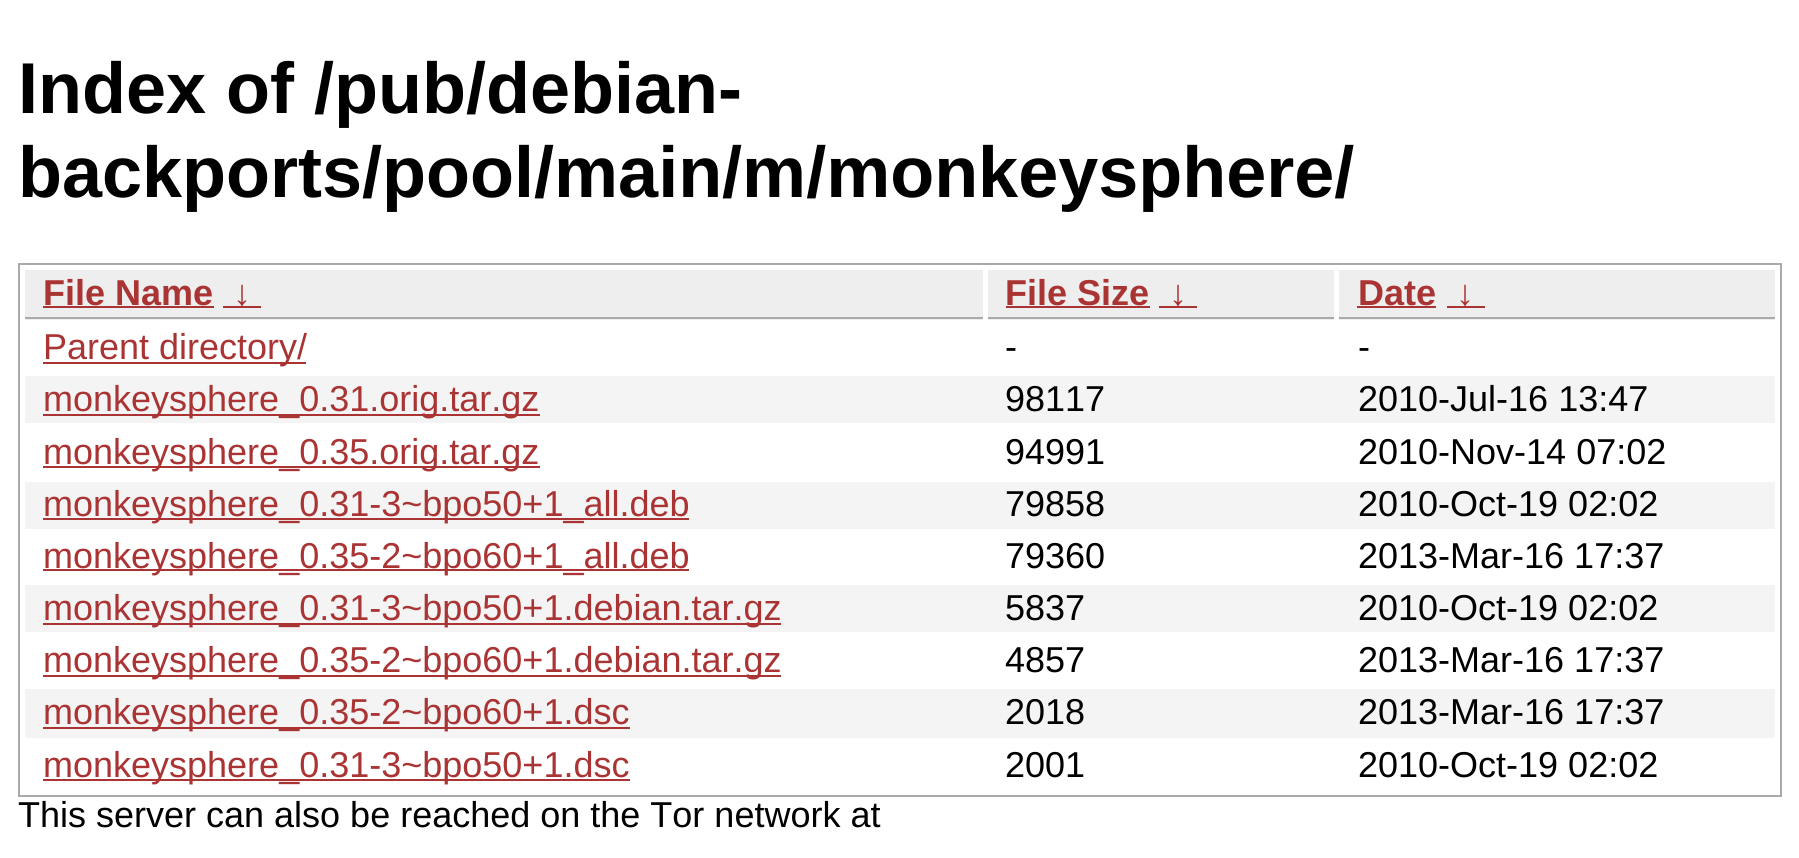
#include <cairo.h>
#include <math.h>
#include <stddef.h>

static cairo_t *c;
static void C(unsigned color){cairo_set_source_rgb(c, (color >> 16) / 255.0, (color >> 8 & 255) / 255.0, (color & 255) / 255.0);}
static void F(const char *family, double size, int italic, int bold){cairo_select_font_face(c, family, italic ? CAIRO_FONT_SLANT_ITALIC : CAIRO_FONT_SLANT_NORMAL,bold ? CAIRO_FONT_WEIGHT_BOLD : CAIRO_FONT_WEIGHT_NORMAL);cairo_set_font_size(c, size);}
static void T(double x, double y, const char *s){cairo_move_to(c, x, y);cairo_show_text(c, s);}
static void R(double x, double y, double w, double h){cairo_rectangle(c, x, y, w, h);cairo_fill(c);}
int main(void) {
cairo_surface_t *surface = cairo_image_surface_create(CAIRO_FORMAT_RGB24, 1799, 858);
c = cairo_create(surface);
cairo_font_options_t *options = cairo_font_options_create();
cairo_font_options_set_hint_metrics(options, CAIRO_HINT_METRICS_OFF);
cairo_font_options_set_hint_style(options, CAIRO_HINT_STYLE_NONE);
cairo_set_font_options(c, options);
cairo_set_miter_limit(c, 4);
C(0xffffff);
cairo_paint(c);
F("Liberation Sans",72,0,1);
C(0x000000);
T(18,113,"Index of /pub/debian-");
T(18,197,"backports/pool/main/m/monkeysphere/");
cairo_rectangle(c,19,264,1762,532);
C(0xaaaaaa);
cairo_stroke(c);
C(0xeeeeee);
R(25,270,958,50);
C(0xaaaaaa);
R(25,317,958,2);
F("Liberation Sans",36,0,1);
C(0xaa3333);
T(43,305,"File Name");
R(43,306,171,2);
R(223,306,38,2);
T(233,305,"↓");
C(0xeeeeee);
R(988,270,346,50);
C(0xaaaaaa);
R(988,317,346,2);
C(0xaa3333);
T(1005,305,"File Size");
R(1006,306,144,2);
R(1159,306,38,2);
T(1169,305,"↓");
C(0xeeeeee);
R(1339,270,436,50);
C(0xaaaaaa);
R(1339,317,436,2);
C(0xaa3333);
T(1358,305,"Date");
R(1357,306,79,2);
R(1447,306,38,2);
T(1456,305,"↓");
R(43,362,263,2);
F("Liberation Sans",36,0,0);
T(43,359,"Parent directory/");
C(0x000000);
T(1005,359,"-");
T(1358,359,"-");
C(0xf4f4f4);
R(25,376,1750,47);
C(0xaa3333);
R(43,414,497,2);
T(43,411,"monkeysphere_0.31.orig.tar.gz");
C(0x000000);
T(1005,411,"98117");
T(1358,411,"2010-Jul-16 13:47");
C(0xaa3333);
R(43,466,497,2);
T(43,464,"monkeysphere_0.35.orig.tar.gz");
C(0x000000);
T(1005,464,"94991");
T(1358,464,"2010-Nov-14 07:02");
C(0xf4f4f4);
R(25,482,1750,47);
C(0xaa3333);
R(43,518,646,2);
T(43,516,"monkeysphere_0.31-3~bpo50+1_all.deb");
C(0x000000);
T(1005,516,"79858");
T(1358,516,"2010-Oct-19 02:02");
C(0xaa3333);
R(43,569,646,2);
T(43,568,"monkeysphere_0.35-2~bpo60+1_all.deb");
C(0x000000);
T(1005,568,"79360");
T(1358,568,"2013-Mar-16 17:37");
C(0xf4f4f4);
R(25,585,1750,47);
C(0xaa3333);
R(43,623,738,2);
T(43,620,"monkeysphere_0.31-3~bpo50+1.debian.tar.gz");
C(0x000000);
T(1005,620,"5837");
T(1358,620,"2010-Oct-19 02:02");
C(0xaa3333);
R(43,675,738,2);
T(43,672,"monkeysphere_0.35-2~bpo60+1.debian.tar.gz");
C(0x000000);
T(1005,672,"4857");
T(1358,672,"2013-Mar-16 17:37");
C(0xf4f4f4);
R(25,689,1750,49);
C(0xaa3333);
R(43,727,587,2);
T(43,724,"monkeysphere_0.35-2~bpo60+1.dsc");
C(0x000000);
T(1005,724,"2018");
T(1358,724,"2013-Mar-16 17:37");
C(0xaa3333);
R(43,779,587,2);
T(43,777,"monkeysphere_0.31-3~bpo50+1.dsc");
C(0x000000);
T(1005,777,"2001");
T(1358,777,"2010-Oct-19 02:02");
T(18,827,"This server can also be reached on the Tor network at");
cairo_surface_write_to_png(surface, "o.png");
cairo_font_options_destroy(options);
cairo_destroy(c);
cairo_surface_destroy(surface);
return 0;
}
